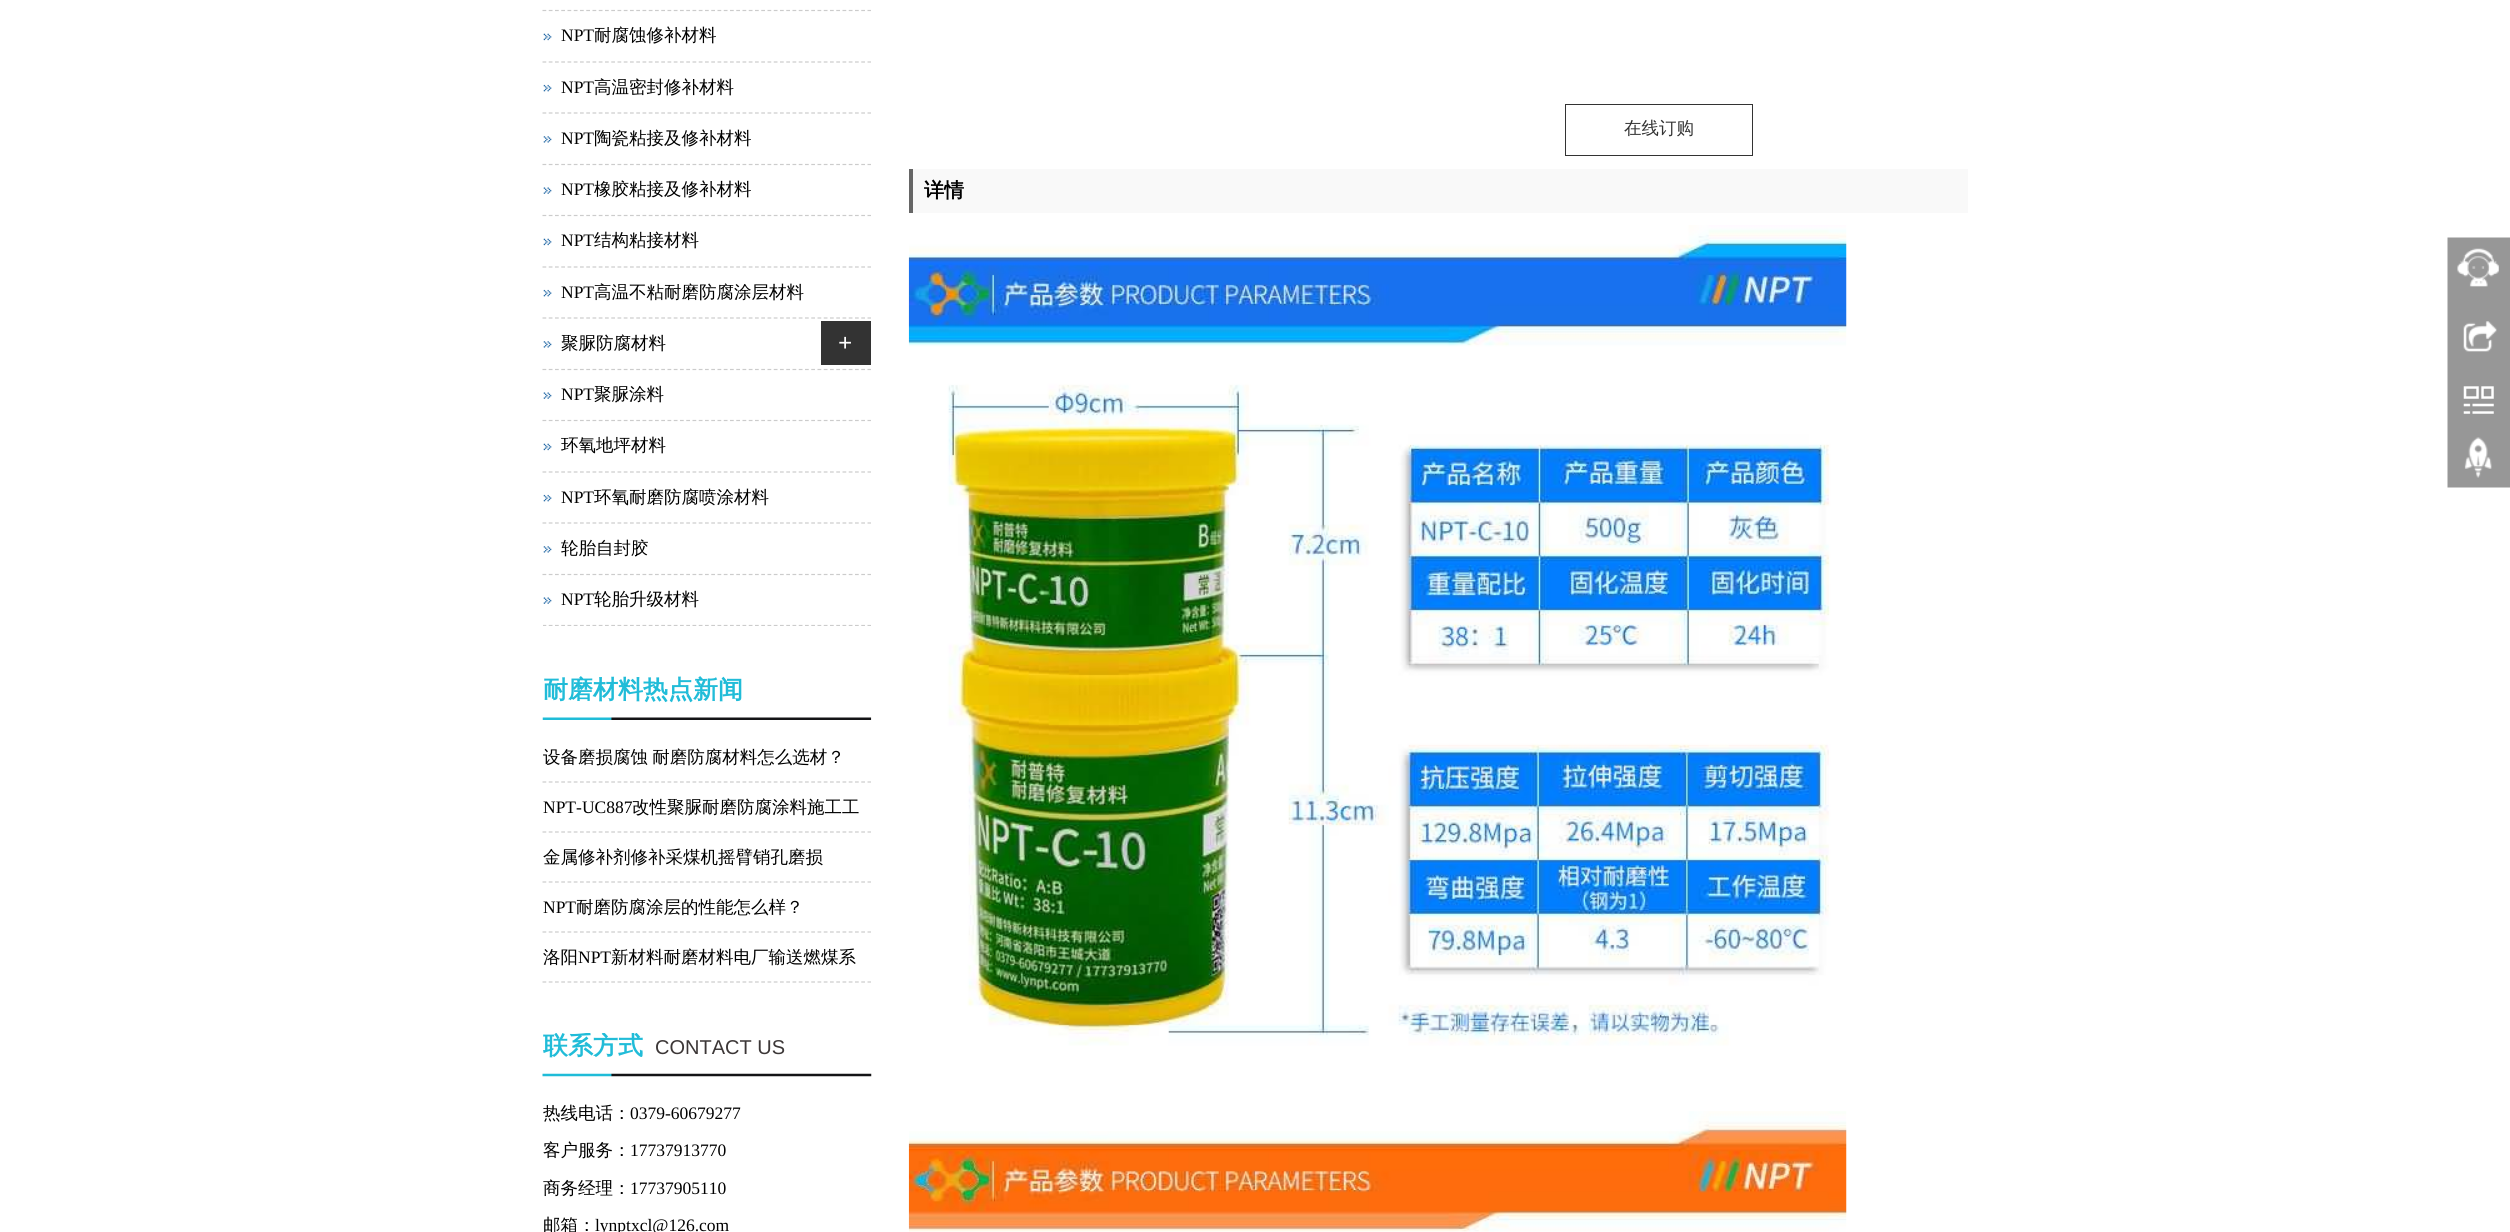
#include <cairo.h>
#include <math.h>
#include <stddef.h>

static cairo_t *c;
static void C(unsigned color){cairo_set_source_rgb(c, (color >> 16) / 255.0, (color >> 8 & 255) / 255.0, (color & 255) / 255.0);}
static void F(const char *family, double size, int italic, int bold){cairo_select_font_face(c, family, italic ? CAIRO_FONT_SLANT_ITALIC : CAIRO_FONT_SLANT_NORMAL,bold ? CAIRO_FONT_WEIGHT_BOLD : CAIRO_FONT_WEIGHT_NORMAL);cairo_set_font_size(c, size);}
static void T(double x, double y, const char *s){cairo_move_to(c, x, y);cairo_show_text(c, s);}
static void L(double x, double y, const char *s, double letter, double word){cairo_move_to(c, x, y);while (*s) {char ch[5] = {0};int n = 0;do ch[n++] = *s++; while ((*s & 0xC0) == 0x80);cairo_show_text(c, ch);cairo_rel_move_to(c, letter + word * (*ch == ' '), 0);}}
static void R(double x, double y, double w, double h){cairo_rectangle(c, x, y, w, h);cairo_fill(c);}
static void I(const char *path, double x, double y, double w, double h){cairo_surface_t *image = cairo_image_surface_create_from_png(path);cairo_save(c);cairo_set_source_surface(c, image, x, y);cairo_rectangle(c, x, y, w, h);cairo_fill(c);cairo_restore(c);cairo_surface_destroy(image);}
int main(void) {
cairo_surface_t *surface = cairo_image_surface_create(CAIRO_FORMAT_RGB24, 2510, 1232);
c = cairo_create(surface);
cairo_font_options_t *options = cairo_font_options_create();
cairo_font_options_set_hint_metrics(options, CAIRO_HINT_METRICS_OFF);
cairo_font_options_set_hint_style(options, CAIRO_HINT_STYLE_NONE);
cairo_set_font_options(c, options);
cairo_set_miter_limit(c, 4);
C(0xffffff);
cairo_paint(c);
cairo_new_path(c);
cairo_move_to(c,542.5,10.5);
cairo_line_to(c,871,10.5);
C(0xcccccc);
cairo_set_line_width(c,1.2);
cairo_set_dash(c,(double[]){3.75,2.5},2,0);
cairo_stroke(c);
I("1.png",543,33,9,8);
cairo_new_path(c);
cairo_move_to(c,542.5,62);
cairo_line_to(c,871,62);
cairo_stroke(c);
F("Liberation Serif",17.5,0,0);
C(0x000000);
T(561,41,"NPT");
F("WenQuanYi Zen Hei Medium",17.5,0,0);
T(594,41,"耐腐蚀修补材料");
I("2.png",543,84,9,8);
cairo_new_path(c);
cairo_move_to(c,542.5,113);
cairo_line_to(c,871,113);
C(0xcccccc);
cairo_stroke(c);
F("Liberation Serif",17.5,0,0);
C(0x000000);
T(561,93,"NPT");
F("WenQuanYi Zen Hei Medium",17.5,0,0);
T(594,93,"高温密封修补材料");
I("3.png",543,136,9,7);
cairo_new_path(c);
cairo_move_to(c,542.5,164.5);
cairo_line_to(c,871,164.5);
C(0xcccccc);
cairo_stroke(c);
F("Liberation Serif",17.5,0,0);
C(0x000000);
T(561,144,"NPT");
F("WenQuanYi Zen Hei Medium",17.5,0,0);
T(594,144,"陶瓷粘接及修补材料");
I("4.png",543,187,9,7);
cairo_new_path(c);
cairo_move_to(c,542.5,215.5);
cairo_line_to(c,871,215.5);
C(0xcccccc);
cairo_stroke(c);
F("Liberation Serif",17.5,0,0);
C(0x000000);
T(561,195,"NPT");
F("WenQuanYi Zen Hei Medium",17.5,0,0);
T(594,195,"橡胶粘接及修补材料");
I("1.png",543,238,9,8);
cairo_new_path(c);
cairo_move_to(c,542.5,267);
cairo_line_to(c,871,267);
C(0xcccccc);
cairo_stroke(c);
F("Liberation Serif",17.5,0,0);
C(0x000000);
T(561,246,"NPT");
F("WenQuanYi Zen Hei Medium",17.5,0,0);
T(594,246,"结构粘接材料");
I("2.png",543,289,9,8);
cairo_new_path(c);
cairo_move_to(c,542.5,318);
cairo_line_to(c,871,318);
C(0xcccccc);
cairo_stroke(c);
F("Liberation Serif",17.5,0,0);
C(0x000000);
T(561,298,"NPT");
F("WenQuanYi Zen Hei Medium",17.5,0,0);
T(594,298,"高温不粘耐磨防腐涂层材料");
I("3.png",543,341,9,7);
cairo_new_path(c);
cairo_move_to(c,542.5,369.5);
cairo_line_to(c,871,369.5);
C(0xcccccc);
cairo_stroke(c);
C(0x000000);
T(561,349,"聚脲防腐材料");
C(0x333333);
R(821,321,50,44);
F("Liberation Serif",25,0,1);
C(0xffffff);
T(838,351,"+");
I("5.png",543,392,9,7);
cairo_new_path(c);
cairo_move_to(c,542.5,420.5);
cairo_line_to(c,871,420.5);
C(0xcccccc);
cairo_stroke(c);
F("Liberation Serif",17.5,0,0);
C(0x000000);
T(561,400,"NPT");
F("WenQuanYi Zen Hei Medium",17.5,0,0);
T(594,400,"聚脲涂料");
I("1.png",543,443,9,8);
cairo_new_path(c);
cairo_move_to(c,542.5,472);
cairo_line_to(c,871,472);
C(0xcccccc);
cairo_stroke(c);
C(0x000000);
T(561,451,"环氧地坪材料");
I("2.png",543,494,9,8);
cairo_new_path(c);
cairo_move_to(c,542.5,523);
cairo_line_to(c,871,523);
C(0xcccccc);
cairo_stroke(c);
F("Liberation Serif",17.5,0,0);
C(0x000000);
T(561,503,"NPT");
F("WenQuanYi Zen Hei Medium",17.5,0,0);
T(594,503,"环氧耐磨防腐喷涂材料");
I("3.png",543,546,9,7);
cairo_new_path(c);
cairo_move_to(c,542.5,574.5);
cairo_line_to(c,871,574.5);
C(0xcccccc);
cairo_stroke(c);
C(0x000000);
T(561,554,"轮胎自封胶");
I("5.png",543,597,9,7);
cairo_save(c);
cairo_rectangle(c,543,0,328,626);
cairo_clip(c);
cairo_new_path(c);
cairo_move_to(c,542.5,625.5);
cairo_line_to(c,871,625.5);
C(0xcccccc);
cairo_stroke(c);
cairo_restore(c);
F("Liberation Serif",17.5,0,0);
T(561,605,"NPT");
F("WenQuanYi Zen Hei Medium",17.5,0,0);
T(594,605,"轮胎升级材料");
I("6.png",542,717,330,3);
F("WenQuanYi Zen Hei",25,0,1);
C(0x21bcd8);
T(543,698,"耐磨材料热点新闻");
cairo_new_path(c);
cairo_move_to(c,542.5,782);
cairo_line_to(c,871,782);
C(0xcccccc);
cairo_stroke(c);
F("WenQuanYi Zen Hei Medium",17.5,0,0);
C(0x000000);
L(543,763,"设备磨损腐蚀 耐磨防腐材料怎么选材？",0,-1);
cairo_new_path(c);
cairo_move_to(c,542.5,832);
cairo_line_to(c,871,832);
C(0xcccccc);
cairo_stroke(c);
F("Liberation Serif",17.5,0,0);
C(0x000000);
T(543,813,"NPT-UC887");
F("WenQuanYi Zen Hei Medium",17.5,0,0);
T(632,813,"改性聚脲耐磨防腐涂料施工工");
cairo_new_path(c);
cairo_move_to(c,542.5,882);
cairo_line_to(c,871,882);
C(0xcccccc);
cairo_stroke(c);
C(0x000000);
T(543,863,"金属修补剂修补采煤机摇臂销孔磨损");
cairo_new_path(c);
cairo_move_to(c,542.5,932);
cairo_line_to(c,871,932);
C(0xcccccc);
cairo_stroke(c);
F("Liberation Serif",17.5,0,0);
C(0x000000);
T(543,913,"NPT");
F("WenQuanYi Zen Hei Medium",17.5,0,0);
T(576,913,"耐磨防腐涂层的性能怎么样？");
cairo_new_path(c);
cairo_move_to(c,542.5,982);
cairo_line_to(c,871,982);
C(0xcccccc);
cairo_stroke(c);
C(0x000000);
T(543,963,"洛阳");
F("Liberation Serif",17.5,0,0);
T(578,963,"NPT");
F("WenQuanYi Zen Hei Medium",17.5,0,0);
T(611,963,"新材料耐磨材料电厂输送燃煤系");
I("7.png",542,1073,330,4);
cairo_save(c);
cairo_rectangle(c,543,1033,100,43);
cairo_clip(c);
F("WenQuanYi Zen Hei",25,0,1);
C(0x21bcd8);
T(543,1054,"联系方式");
cairo_restore(c);
F("Liberation Sans",20,0,0);
C(0x3c3737);
T(655,1054,"CONTACT US");
F("WenQuanYi Zen Hei Medium",17.5,0,0);
C(0x000000);
T(543,1119,"热线电话：");
F("Liberation Serif",17.5,0,0);
T(630,1119,"0379-60679277");
F("WenQuanYi Zen Hei Medium",17.5,0,0);
T(543,1156,"客户服务：");
F("Liberation Serif",17.5,0,0);
T(630,1156,"17737913770");
F("WenQuanYi Zen Hei Medium",17.5,0,0);
T(543,1194,"商务经理：");
F("Liberation Serif",17.5,0,0);
T(630,1194,"17737905110");
F("WenQuanYi Zen Hei Medium",17.5,0,0);
T(543,1231,"邮箱：");
F("Liberation Serif",17.5,0,0);
T(595,1231,"lynptxcl@126.com");
cairo_rectangle(c,1565.5,104.5,187,51);
C(0x333333);
cairo_set_line_width(c,1);
cairo_set_dash(c,NULL,0,0);
cairo_stroke(c);
F("WenQuanYi Zen Hei Medium",17.5,0,0);
T(1624,134,"在线订购");
C(0xf9f9f9);
R(913,169,1055,44);
C(0x666666);
R(909,169,4,44);
F("WenQuanYi Zen Hei",20,0,1);
C(0x000000);
T(924,197,"详情");
I("8.png",908,225,939,821);
I("9.png",908,1111,939,121);
I("10.png",2447,237,63,251);
cairo_surface_write_to_png(surface, "o.png");
cairo_font_options_destroy(options);
cairo_destroy(c);
cairo_surface_destroy(surface);
return 0;
}
